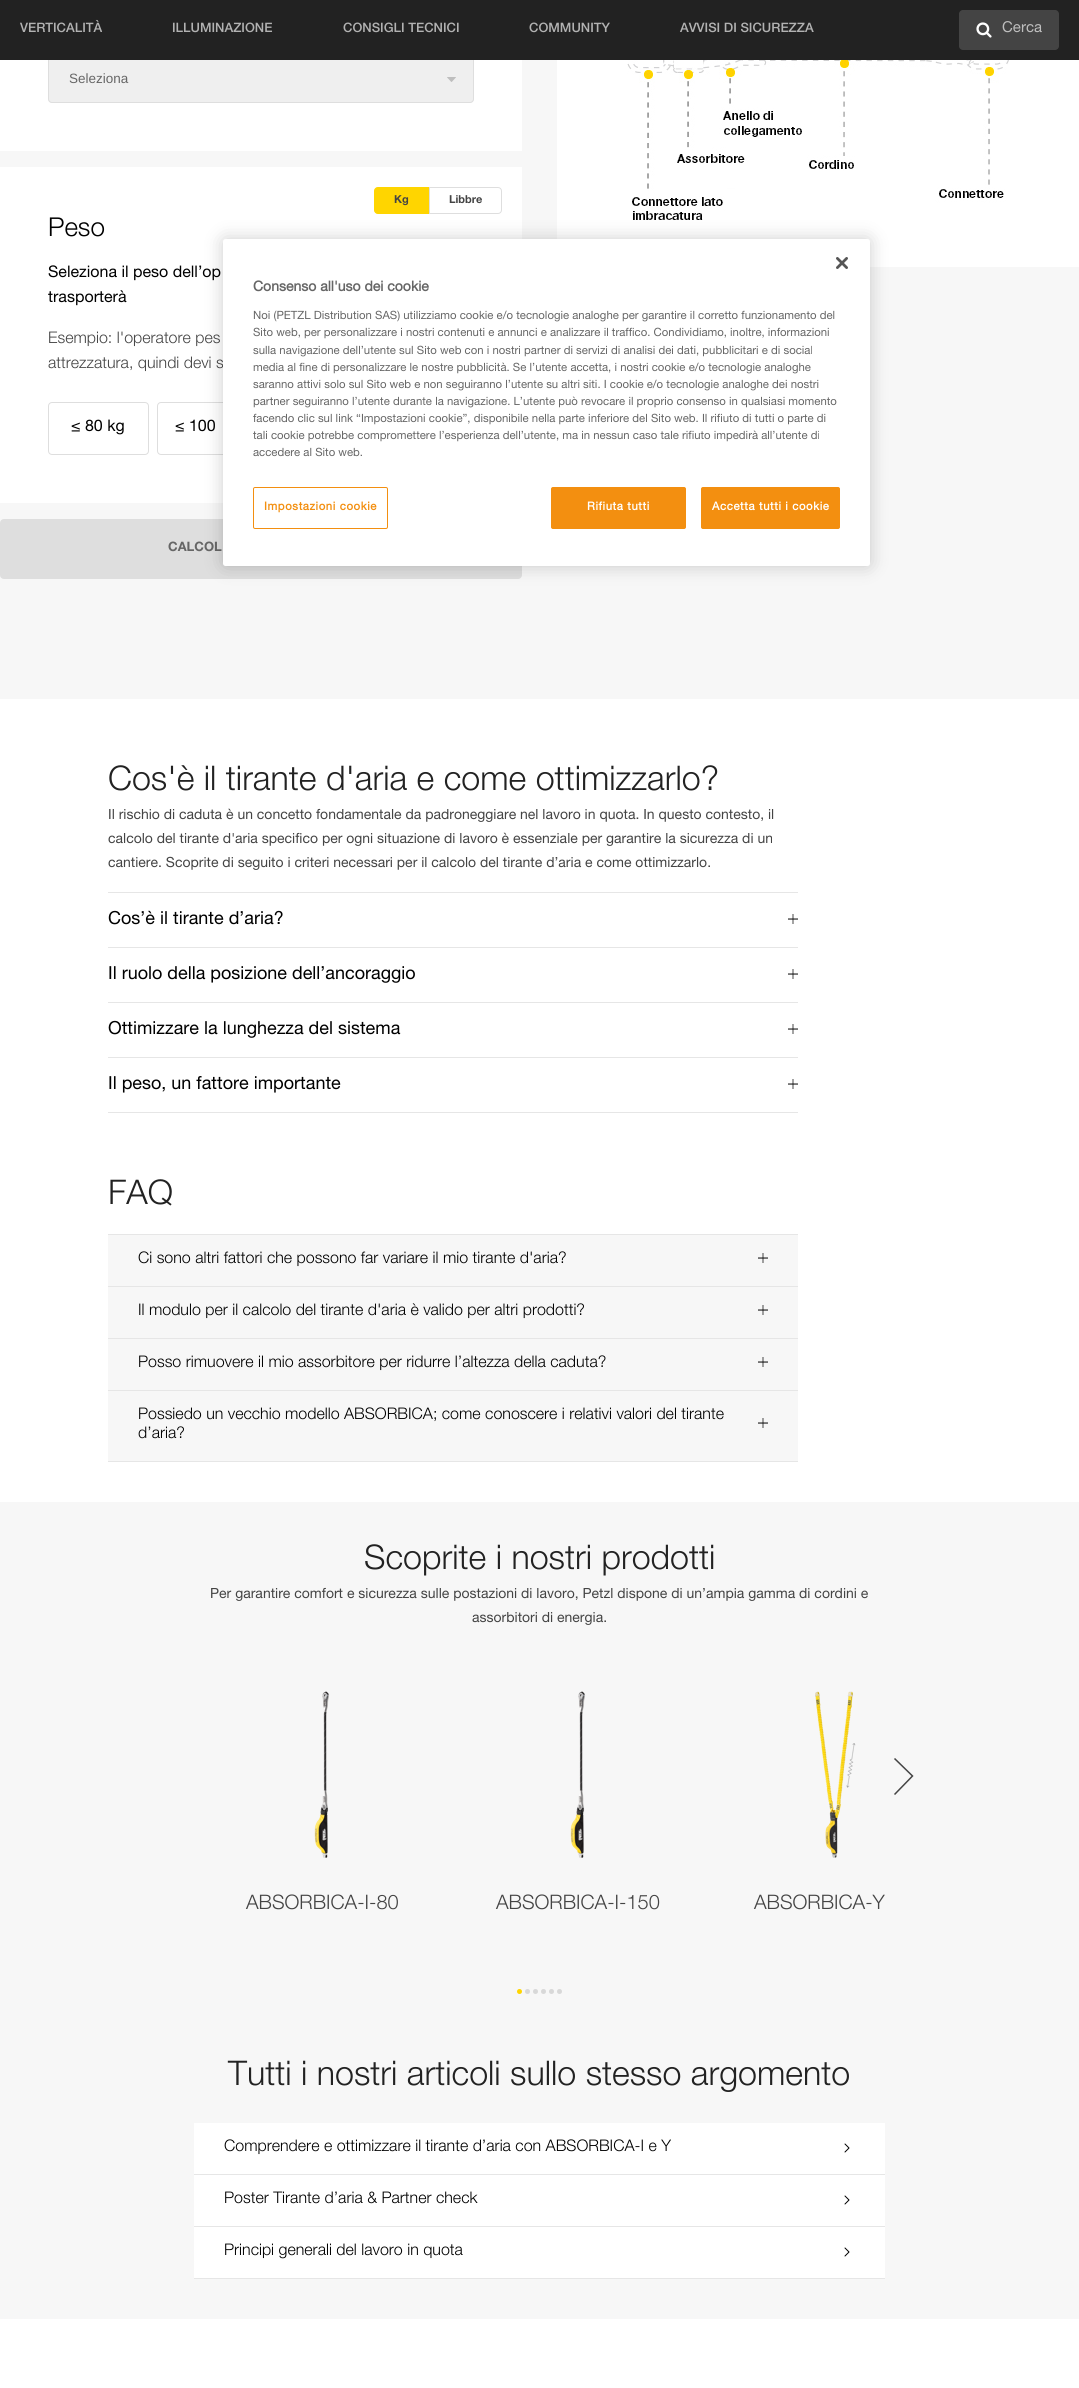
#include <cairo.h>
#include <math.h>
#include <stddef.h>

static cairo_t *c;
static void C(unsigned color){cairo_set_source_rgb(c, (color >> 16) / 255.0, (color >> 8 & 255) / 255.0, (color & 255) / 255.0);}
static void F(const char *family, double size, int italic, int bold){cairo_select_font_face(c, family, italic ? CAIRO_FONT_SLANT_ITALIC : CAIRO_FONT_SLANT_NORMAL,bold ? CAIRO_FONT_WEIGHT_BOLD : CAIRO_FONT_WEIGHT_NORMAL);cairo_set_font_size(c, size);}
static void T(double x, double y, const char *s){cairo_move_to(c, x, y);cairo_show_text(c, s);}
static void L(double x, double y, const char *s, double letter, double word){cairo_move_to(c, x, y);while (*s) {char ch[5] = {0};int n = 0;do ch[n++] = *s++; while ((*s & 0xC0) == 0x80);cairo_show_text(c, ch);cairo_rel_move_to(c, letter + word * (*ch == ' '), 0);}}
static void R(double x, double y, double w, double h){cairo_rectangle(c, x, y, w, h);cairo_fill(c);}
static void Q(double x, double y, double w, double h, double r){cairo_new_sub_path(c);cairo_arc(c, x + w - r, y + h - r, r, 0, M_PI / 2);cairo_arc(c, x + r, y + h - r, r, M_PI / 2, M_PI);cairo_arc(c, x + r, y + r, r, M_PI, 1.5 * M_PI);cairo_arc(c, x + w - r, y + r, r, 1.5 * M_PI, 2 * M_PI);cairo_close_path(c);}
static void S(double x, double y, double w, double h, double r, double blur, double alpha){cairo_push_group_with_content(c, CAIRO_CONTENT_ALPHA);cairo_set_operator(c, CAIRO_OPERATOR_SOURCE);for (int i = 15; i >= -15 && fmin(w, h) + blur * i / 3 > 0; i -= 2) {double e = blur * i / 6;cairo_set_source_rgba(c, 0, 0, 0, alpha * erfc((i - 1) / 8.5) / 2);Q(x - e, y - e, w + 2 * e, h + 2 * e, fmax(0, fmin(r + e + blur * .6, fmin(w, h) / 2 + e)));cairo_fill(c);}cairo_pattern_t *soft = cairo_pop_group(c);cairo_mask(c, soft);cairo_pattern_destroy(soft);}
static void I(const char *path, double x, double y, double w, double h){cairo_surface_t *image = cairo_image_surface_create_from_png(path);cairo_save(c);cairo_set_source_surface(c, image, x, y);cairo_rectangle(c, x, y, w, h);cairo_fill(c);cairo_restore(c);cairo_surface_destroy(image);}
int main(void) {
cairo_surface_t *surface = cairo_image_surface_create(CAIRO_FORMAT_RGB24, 1079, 2388);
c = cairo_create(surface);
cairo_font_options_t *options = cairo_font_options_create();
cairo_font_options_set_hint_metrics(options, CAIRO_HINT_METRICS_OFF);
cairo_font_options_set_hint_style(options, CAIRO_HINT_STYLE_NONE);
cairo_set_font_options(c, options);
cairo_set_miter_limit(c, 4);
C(0xffffff);
cairo_paint(c);
C(0xf7f7f7);
R(0,60,1079,639);
C(0xffffff);
R(0,60,522,91);
C(0xefefef);
Q(48,55,426,48,4);
cairo_fill(c);
I("2.png",447,77,9,5);
Q(48.5,55.5,425,47,3.5);
C(0xdedede);
cairo_set_line_width(c,1);
cairo_stroke(c);
C(0x222222);
R(0,0,1079,60);
F("Helvetica Neue Medium",13,0,0);
C(0xb2b2b2);
T(20,32,"VERTICALITÀ");
T(172,32,"ILLUMINAZIONE");
T(343,32,"CONSIGLI TECNICI");
T(529,32,"COMMUNITY");
T(680,32,"AVVISI DI SICUREZZA");
C(0x444444);
Q(959,10,100,40,4);
cairo_fill(c);
I("1.png",976,22,16,16);
F("Helvetica Neue",15,0,0);
C(0xbebebe);
T(1002,32,"Cerca");
F("Liberation Sans",13.5,0,0);
C(0x666666);
T(69,83,"Seleziona");
C(0xffffff);
R(0,167,522,336);
C(0xffd500);
cairo_new_path(c);
cairo_move_to(c,378,187.5);
cairo_line_to(c,428.5,187.5);
cairo_line_to(c,428.5,213.5);
cairo_line_to(c,378,213.5);
cairo_curve_to(c,376,213.5,374.5,212,374.5,210);
cairo_line_to(c,374.5,191);
cairo_curve_to(c,374.5,189,376,187.5,378,187.5);
cairo_close_path(c);
cairo_fill_preserve(c);
cairo_stroke(c);
F("Helvetica Neue",11,0,1);
C(0x444444);
T(394,203,"Kg");
cairo_new_path(c);
cairo_move_to(c,429.5,187.5);
cairo_line_to(c,498,187.5);
cairo_curve_to(c,500,187.5,501.5,189,501.5,191);
cairo_line_to(c,501.5,210);
cairo_curve_to(c,501.5,212,500,213.5,498,213.5);
cairo_line_to(c,429.5,213.5);
cairo_close_path(c);
C(0xdedede);
cairo_stroke(c);
C(0x444444);
T(449,203,"Libbre");
F("Helvetica Neue Light",26,0,0);
C(0x000000);
T(48,236,"Peso");
F("Helvetica Neue",16,0,0);
T(48,277,"Seleziona il peso dell’op");
T(48,302,"trasporterà");
F("Helvetica Neue Light",16,0,0);
C(0x444444);
T(48,343,"Esempio: l'operatore pes");
T(48,368,"attrezzatura, quindi devi s");
Q(48.5,402.5,100,52,3.5);
C(0xdedede);
cairo_stroke(c);
F("Helvetica Neue",16,0,0);
C(0x000000);
T(71,431,"≤ 80 kg");
Q(157.5,402.5,99,52,3.5);
C(0xdedede);
cairo_stroke(c);
C(0x000000);
T(175,431,"≤ 100");
C(0xdedede);
Q(0,519,522,60,4);
cairo_fill(c);
F("Helvetica Neue",13,0,1);
C(0x666666);
T(168,551,"CALCOL");
C(0xffffff);
R(557,60,522,207);
I("3.png",627,60,382,160);
F("Helvetica Neue Light",34,0,0);
C(0x222222);
T(108,790,"Cos'è il tirante d'aria e come ottimizzarlo?");
F("Helvetica Neue",14,0,0);
C(0x444444);
T(108,819,"Il rischio di caduta è un concetto fondamentale da padroneggiare nel lavoro in quota. In questo contesto, il");
T(108,843,"calcolo del tirante d'aria specifico per ogni situazione di lavoro è essenziale per garantire la sicurezza di un");
T(108,867,"cantiere. Scoprite di seguito i criteri necessari per il calcolo del tirante d’aria e come ottimizzarlo.");
C(0xe6e6e6);
R(108,892,690,1);
R(108,947,690,1);
F("Helvetica Neue",18,0,0);
C(0x000000);
T(108,924,"Cos’è il tirante d’aria?");
I("4.png",788,914,10,10);
C(0xe6e6e6);
R(108,1002,690,1);
C(0x000000);
T(108,979,"Il ruolo della posizione dell’ancoraggio");
I("4.png",788,969,10,10);
C(0xe6e6e6);
R(108,1057,690,1);
C(0x000000);
T(108,1034,"Ottimizzare la lunghezza del sistema");
I("4.png",788,1024,10,10);
C(0xe6e6e6);
R(108,1112,690,1);
C(0x000000);
T(108,1089,"Il peso, un fattore importante");
I("4.png",788,1079,10,10);
F("Helvetica Neue Light",34,0,0);
C(0x222222);
T(108,1204,"FAQ");
C(0xe6e6e6);
R(108,1234,690,1);
C(0xf7f7f7);
R(108,1235,690,51);
C(0xe6e6e6);
R(108,1286,690,1);
F("Helvetica Neue Light",16,0,0);
C(0x000000);
T(138,1263,"Ci sono altri fattori che possono far variare il mio tirante d'aria?");
I("5.png",758,1253,10,10);
C(0xf7f7f7);
R(108,1287,690,51);
C(0xe6e6e6);
R(108,1338,690,1);
C(0x000000);
T(138,1315,"Il modulo per il calcolo del tirante d'aria è valido per altri prodotti?");
I("5.png",758,1305,10,10);
C(0xf7f7f7);
R(108,1339,690,51);
C(0xe6e6e6);
R(108,1390,690,1);
C(0x000000);
T(138,1367,"Posso rimuovere il mio assorbitore per ridurre l’altezza della caduta?");
I("5.png",758,1357,10,10);
C(0xf7f7f7);
R(108,1391,690,70);
C(0xe6e6e6);
R(108,1461,690,1);
C(0x000000);
T(138,1419,"Possiedo un vecchio modello ABSORBICA; come conoscere i relativi valori del tirante");
T(138,1438,"d’aria?");
I("5.png",758,1418,10,10);
C(0xf7f7f7);
R(0,1502,1079,817);
F("Helvetica Neue Light",34,0,0);
C(0x222222);
T(364,1569,"Scoprite i nostri prodotti");
F("Helvetica Neue",14,0,0);
C(0x444444);
T(210,1598,"Per garantire comfort e sicurezza sulle postazioni di lavoro, Petzl dispone di un’ampia gamma di cordini e");
T(472,1622,"assorbitori di energia.");
cairo_new_path(c);
cairo_move_to(c,894.5,1758.5);
cairo_line_to(c,912.5,1776);
cairo_line_to(c,894.5,1794.5);
cairo_set_line_width(c,1.5);
cairo_stroke(c);
I("6.png",314,1691,16,167);
F("Helvetica Neue Light",20,0,0);
T(246,1909,"ABSORBICA-I-80");
I("6.png",570,1691,16,167);
T(496,1909,"ABSORBICA-I-150");
I("7.png",815,1691,41,167);
T(754,1909,"ABSORBICA-Y");
C(0xffd500);
cairo_new_path(c);
cairo_arc(c,519.5,1991.5,2.5,0,2 * M_PI);
cairo_fill(c);
C(0xd8d8d8);
cairo_arc(c,527.5,1991.5,2.5,0,2 * M_PI);
cairo_fill(c);
cairo_arc(c,535.5,1991.5,2.5,0,2 * M_PI);
cairo_fill(c);
cairo_arc(c,543.5,1991.5,2.5,0,2 * M_PI);
cairo_fill(c);
cairo_arc(c,551.5,1991.5,2.5,0,2 * M_PI);
cairo_fill(c);
cairo_arc(c,559.5,1991.5,2.5,0,2 * M_PI);
cairo_fill(c);
F("Helvetica Neue Light",34,0,0);
C(0x222222);
T(228,2085,"Tutti i nostri articoli sullo stesso argomento");
C(0xffffff);
R(194,2123,691,51);
C(0xe6e6e6);
R(194,2174,691,1);
F("Helvetica Neue Light",16,0,0);
C(0x000000);
T(224,2151,"Comprendere e ottimizzare il tirante d’aria con ABSORBICA-I e Y");
I("8.png",844,2143,6,10);
C(0xffffff);
R(194,2175,691,51);
C(0xe6e6e6);
R(194,2226,691,1);
C(0x000000);
T(224,2203,"Poster Tirante d’aria & Partner check");
I("8.png",844,2195,6,10);
C(0xffffff);
R(194,2227,691,51);
C(0xe6e6e6);
R(194,2278,691,1);
C(0x000000);
T(224,2255,"Principi generali del lavoro in quota");
I("8.png",844,2247,6,10);
C(0x000000);
S(223,239,647,327,2.5,9,.2);
C(0xffffff);
Q(223,239,647,327,2.5);
cairo_fill(c);
I("9.png",836,257,12,12);
F("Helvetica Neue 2",14,0,1);
C(0x666666);
T(253,291,"Consenso all'uso dei cookie");
F("Helvetica Neue",11.38,0,0);
T(253,319,"Noi (PETZL Distribution SAS) utilizziamo cookie e/o tecnologie analoghe per garantire il corretto funzionamento del");
T(253,336,"Sito web, per personalizzare i nostri contenuti e annunci e analizzare il traffico. Condividiamo, inoltre, informazioni");
T(253,354,"sulla navigazione dell’utente sul Sito web con i nostri partner di servizi di analisi dei dati, pubblicitari e di social");
T(253,371,"media al fine di personalizzare le nostre pubblicità. Se l’utente accetta, i nostri cookie e/o tecnologie analoghe");
T(253,388,"saranno attivi solo sul Sito web e non seguiranno l’utente su altri siti. I cookie e/o tecnologie analoghe dei nostri");
T(253,405,"partner seguiranno l’utente durante la navigazione. L’utente può revocare il proprio consenso in qualsiasi momento");
T(253,422,"facendo clic sul link “Impostazioni cookie”, disponibile nella parte inferiore del Sito web. Il rifiuto di tutti o parte di");
T(253,439,"tali cookie potrebbe compromettere l’esperienza dell’utente, ma in nessun caso tale rifiuto impedirà all’utente di");
T(253,456,"accedere al Sito web.");
Q(253.5,487.5,134,41,1.5);
C(0xf38f10);
cairo_set_line_width(c,1);
cairo_stroke(c);
F("Helvetica Neue 2",11.38,0,1);
L(264,510,"Impostazioni cookie",.6,0);
Q(551.5,487.5,134,41,1.5);
cairo_fill_preserve(c);
cairo_stroke(c);
C(0xffffff);
L(587,510,"Rifiuta tutti",.6,0);
C(0xf38f10);
Q(701.5,487.5,138,41,1.5);
cairo_fill_preserve(c);
cairo_stroke(c);
C(0xffffff);
L(712,510,"Accetta tutti i cookie",.6,0);
cairo_surface_write_to_png(surface, "o.png");
cairo_font_options_destroy(options);
cairo_destroy(c);
cairo_surface_destroy(surface);
return 0;
}
